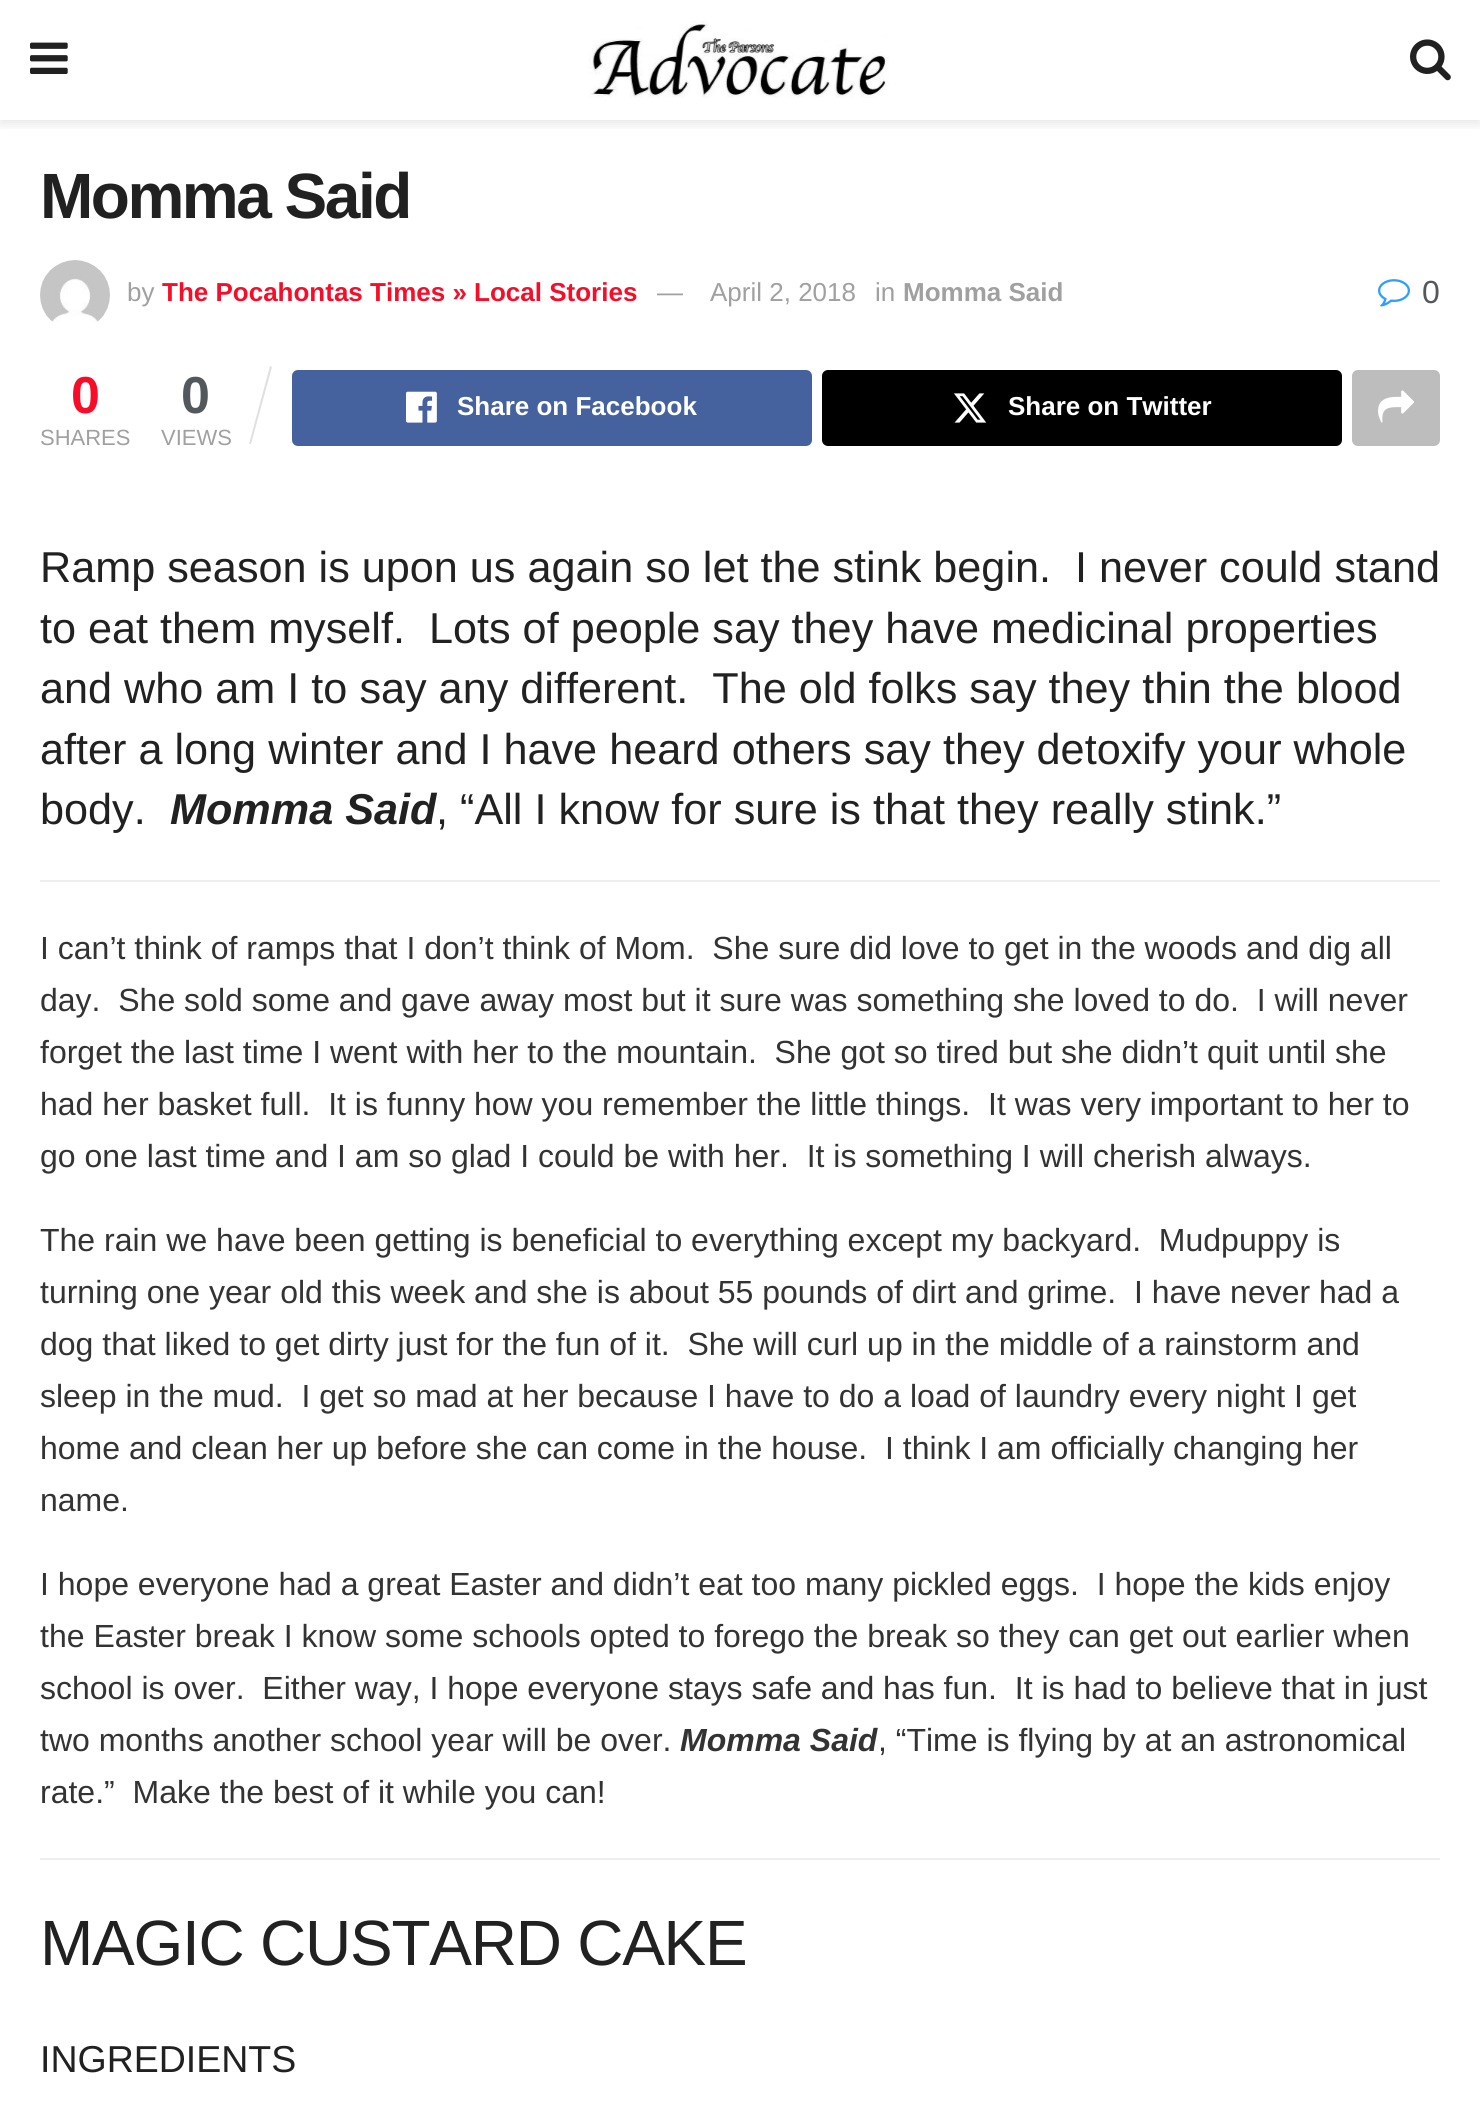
#include <cairo.h>
#include <math.h>
#include <stddef.h>

static cairo_t *c;
static void C(unsigned color){cairo_set_source_rgb(c, (color >> 16) / 255.0, (color >> 8 & 255) / 255.0, (color & 255) / 255.0);}
static void F(const char *family, double size, int italic, int bold){cairo_select_font_face(c, family, italic ? CAIRO_FONT_SLANT_ITALIC : CAIRO_FONT_SLANT_NORMAL,bold ? CAIRO_FONT_WEIGHT_BOLD : CAIRO_FONT_WEIGHT_NORMAL);cairo_set_font_size(c, size);}
static void T(double x, double y, const char *s){cairo_move_to(c, x, y);cairo_show_text(c, s);}
static void L(double x, double y, const char *s, double letter, double word){cairo_move_to(c, x, y);while (*s) {char ch[5] = {0};int n = 0;do ch[n++] = *s++; while ((*s & 0xC0) == 0x80);cairo_show_text(c, ch);cairo_rel_move_to(c, letter + word * (*ch == ' '), 0);}}
static void R(double x, double y, double w, double h){cairo_rectangle(c, x, y, w, h);cairo_fill(c);}
static void Q(double x, double y, double w, double h, double r){cairo_new_sub_path(c);cairo_arc(c, x + w - r, y + h - r, r, 0, M_PI / 2);cairo_arc(c, x + r, y + h - r, r, M_PI / 2, M_PI);cairo_arc(c, x + r, y + r, r, M_PI, 1.5 * M_PI);cairo_arc(c, x + w - r, y + r, r, 1.5 * M_PI, 2 * M_PI);cairo_close_path(c);}
static void S(double x, double y, double w, double h, double r, double blur, double alpha){cairo_push_group_with_content(c, CAIRO_CONTENT_ALPHA);cairo_set_operator(c, CAIRO_OPERATOR_SOURCE);for (int i = 15; i >= -15 && fmin(w, h) + blur * i / 3 > 0; i -= 2) {double e = blur * i / 6;cairo_set_source_rgba(c, 0, 0, 0, alpha * erfc((i - 1) / 8.5) / 2);Q(x - e, y - e, w + 2 * e, h + 2 * e, fmax(0, fmin(r + e + blur * .6, fmin(w, h) / 2 + e)));cairo_fill(c);}cairo_pattern_t *soft = cairo_pop_group(c);cairo_mask(c, soft);cairo_pattern_destroy(soft);}
static void I(const char *path, double x, double y, double w, double h){cairo_surface_t *image = cairo_image_surface_create_from_png(path);cairo_save(c);cairo_set_source_surface(c, image, x, y);cairo_rectangle(c, x, y, w, h);cairo_fill(c);cairo_restore(c);cairo_surface_destroy(image);}
int main(void) {
cairo_surface_t *surface = cairo_image_surface_create(CAIRO_FORMAT_RGB24, 1480, 2109);
c = cairo_create(surface);
cairo_font_options_t *options = cairo_font_options_create();
cairo_font_options_set_hint_metrics(options, CAIRO_HINT_METRICS_OFF);
cairo_font_options_set_hint_style(options, CAIRO_HINT_STYLE_NONE);
cairo_set_font_options(c, options);
cairo_set_miter_limit(c, 4);
C(0xffffff);
cairo_paint(c);
cairo_save(c);
cairo_rectangle(c,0,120,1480,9);
cairo_clip(c);
C(0x000000);
S(0,4,1480,120,0,6,.1);
cairo_restore(c);
I("1.png",30,42,38,32);
I("2.png",588,20,301,78);
I("3.png",1410,39,41,42);
F("Liberation Sans",64,0,1);
C(0x212121);
L(40,218,"Momma Said",-2.5,0);
I("4.png",40,260,70,62);
F("Liberation Sans",26,0,0);
C(0xa0a0a0);
T(127,301,"by");
F("Liberation Sans",26,0,1);
C(0xf70d28);
T(162,301,"The Pocahontas Times » Local Stories");
F("Liberation Sans",26,0,0);
C(0xa0a0a0);
T(657,301,"—");
T(710,301,"April 2, 2018");
T(875,301,"in");
F("Liberation Sans",26,0,1);
T(903,301,"Momma Said");
I("5.png",1378,279,32,28);
F("Liberation Sans",32,0,0);
C(0x53585c);
T(1422,303,"0");
F("Liberation Sans",52,0,1);
C(0xf70d28);
T(71,413,"0");
F("Liberation Sans",22,0,0);
C(0xa0a0a0);
T(40,445,"SHARES");
F("Liberation Sans",52,0,1);
C(0x53585c);
T(181,413,"0");
C(0xe0e0e0);
cairo_new_path(c);
cairo_move_to(c,270,366);
cairo_line_to(c,272,367);
cairo_line_to(c,251,444);
cairo_line_to(c,249,444);
cairo_close_path(c);
cairo_fill(c);
F("Liberation Sans",22,0,0);
C(0xa0a0a0);
T(161,445,"VIEWS");
C(0x45629f);
Q(292,370,520,76,6);
cairo_fill(c);
I("6.png",406,391,31,32);
F("Liberation Sans",26,0,1);
C(0xffffff);
T(457,415,"Share on Facebook");
C(0x000000);
Q(822,370,520,76,6);
cairo_fill(c);
I("7.png",954,393,33,30);
C(0xffffff);
T(1008,415,"Share on Twitter");
C(0xbdbdbd);
Q(1352,370,88,76,6);
cairo_fill(c);
I("8.png",1378,390,36,33);
F("Liberation Sans",43.2,0,0);
C(0x212121);
T(40,582,"Ramp season is upon us again so let the stink begin.  I never could stand");
T(40,643,"to eat them myself.  Lots of people say they have medicinal properties");
T(40,703,"and who am I to say any different.  The old folks say they thin the blood");
T(40,764,"after a long winter and I have heard others say they detoxify your whole");
T(40,824,"body.");
F("Liberation Sans",43.2,1,1);
T(170,824,"Momma Said");
F("Liberation Sans",43.2,0,0);
T(436,824,", “All I know for sure is that they really stink.”");
C(0xeeeeee);
R(40,880,1400,2);
F("Liberation Sans",32,0,0);
C(0x333333);
T(40,959,"I can’t think of ramps that I don’t think of Mom.  She sure did love to get in the woods and dig all");
T(40,1011,"day.  She sold some and gave away most but it sure was something she loved to do.  I will never");
T(40,1063,"forget the last time I went with her to the mountain.  She got so tired but she didn’t quit until she");
T(40,1115,"had her basket full.  It is funny how you remember the little things.  It was very important to her to");
T(40,1167,"go one last time and I am so glad I could be with her.  It is something I will cherish always.");
T(40,1251,"The rain we have been getting is beneficial to everything except my backyard.  Mudpuppy is");
T(40,1303,"turning one year old this week and she is about 55 pounds of dirt and grime.  I have never had a");
T(40,1355,"dog that liked to get dirty just for the fun of it.  She will curl up in the middle of a rainstorm and");
T(40,1407,"sleep in the mud.  I get so mad at her because I have to do a load of laundry every night I get");
T(40,1459,"home and clean her up before she can come in the house.  I think I am officially changing her");
T(40,1511,"name.");
T(40,1595,"I hope everyone had a great Easter and didn’t eat too many pickled eggs.  I hope the kids enjoy");
T(40,1647,"the Easter break I know some schools opted to forego the break so they can get out earlier when");
T(40,1699,"school is over.  Either way, I hope everyone stays safe and has fun.  It is had to believe that in just");
T(40,1751,"two months another school year will be over.");
F("Liberation Sans",32,1,1);
T(680,1751,"Momma Said");
F("Liberation Sans",32,0,0);
T(878,1751,", “Time is flying by at an astronomical");
T(40,1803,"rate.”  Make the best of it while you can!");
C(0xeeeeee);
R(40,1858,1400,2);
F("Liberation Sans",64,0,0);
C(0x212121);
L(40,1965,"MAGIC CUSTARD CAKE",-1.25,0);
F("Liberation Sans",37.5,0,0);
T(40,2072,"INGREDIENTS");
cairo_surface_write_to_png(surface, "o.png");
cairo_font_options_destroy(options);
cairo_destroy(c);
cairo_surface_destroy(surface);
return 0;
}
